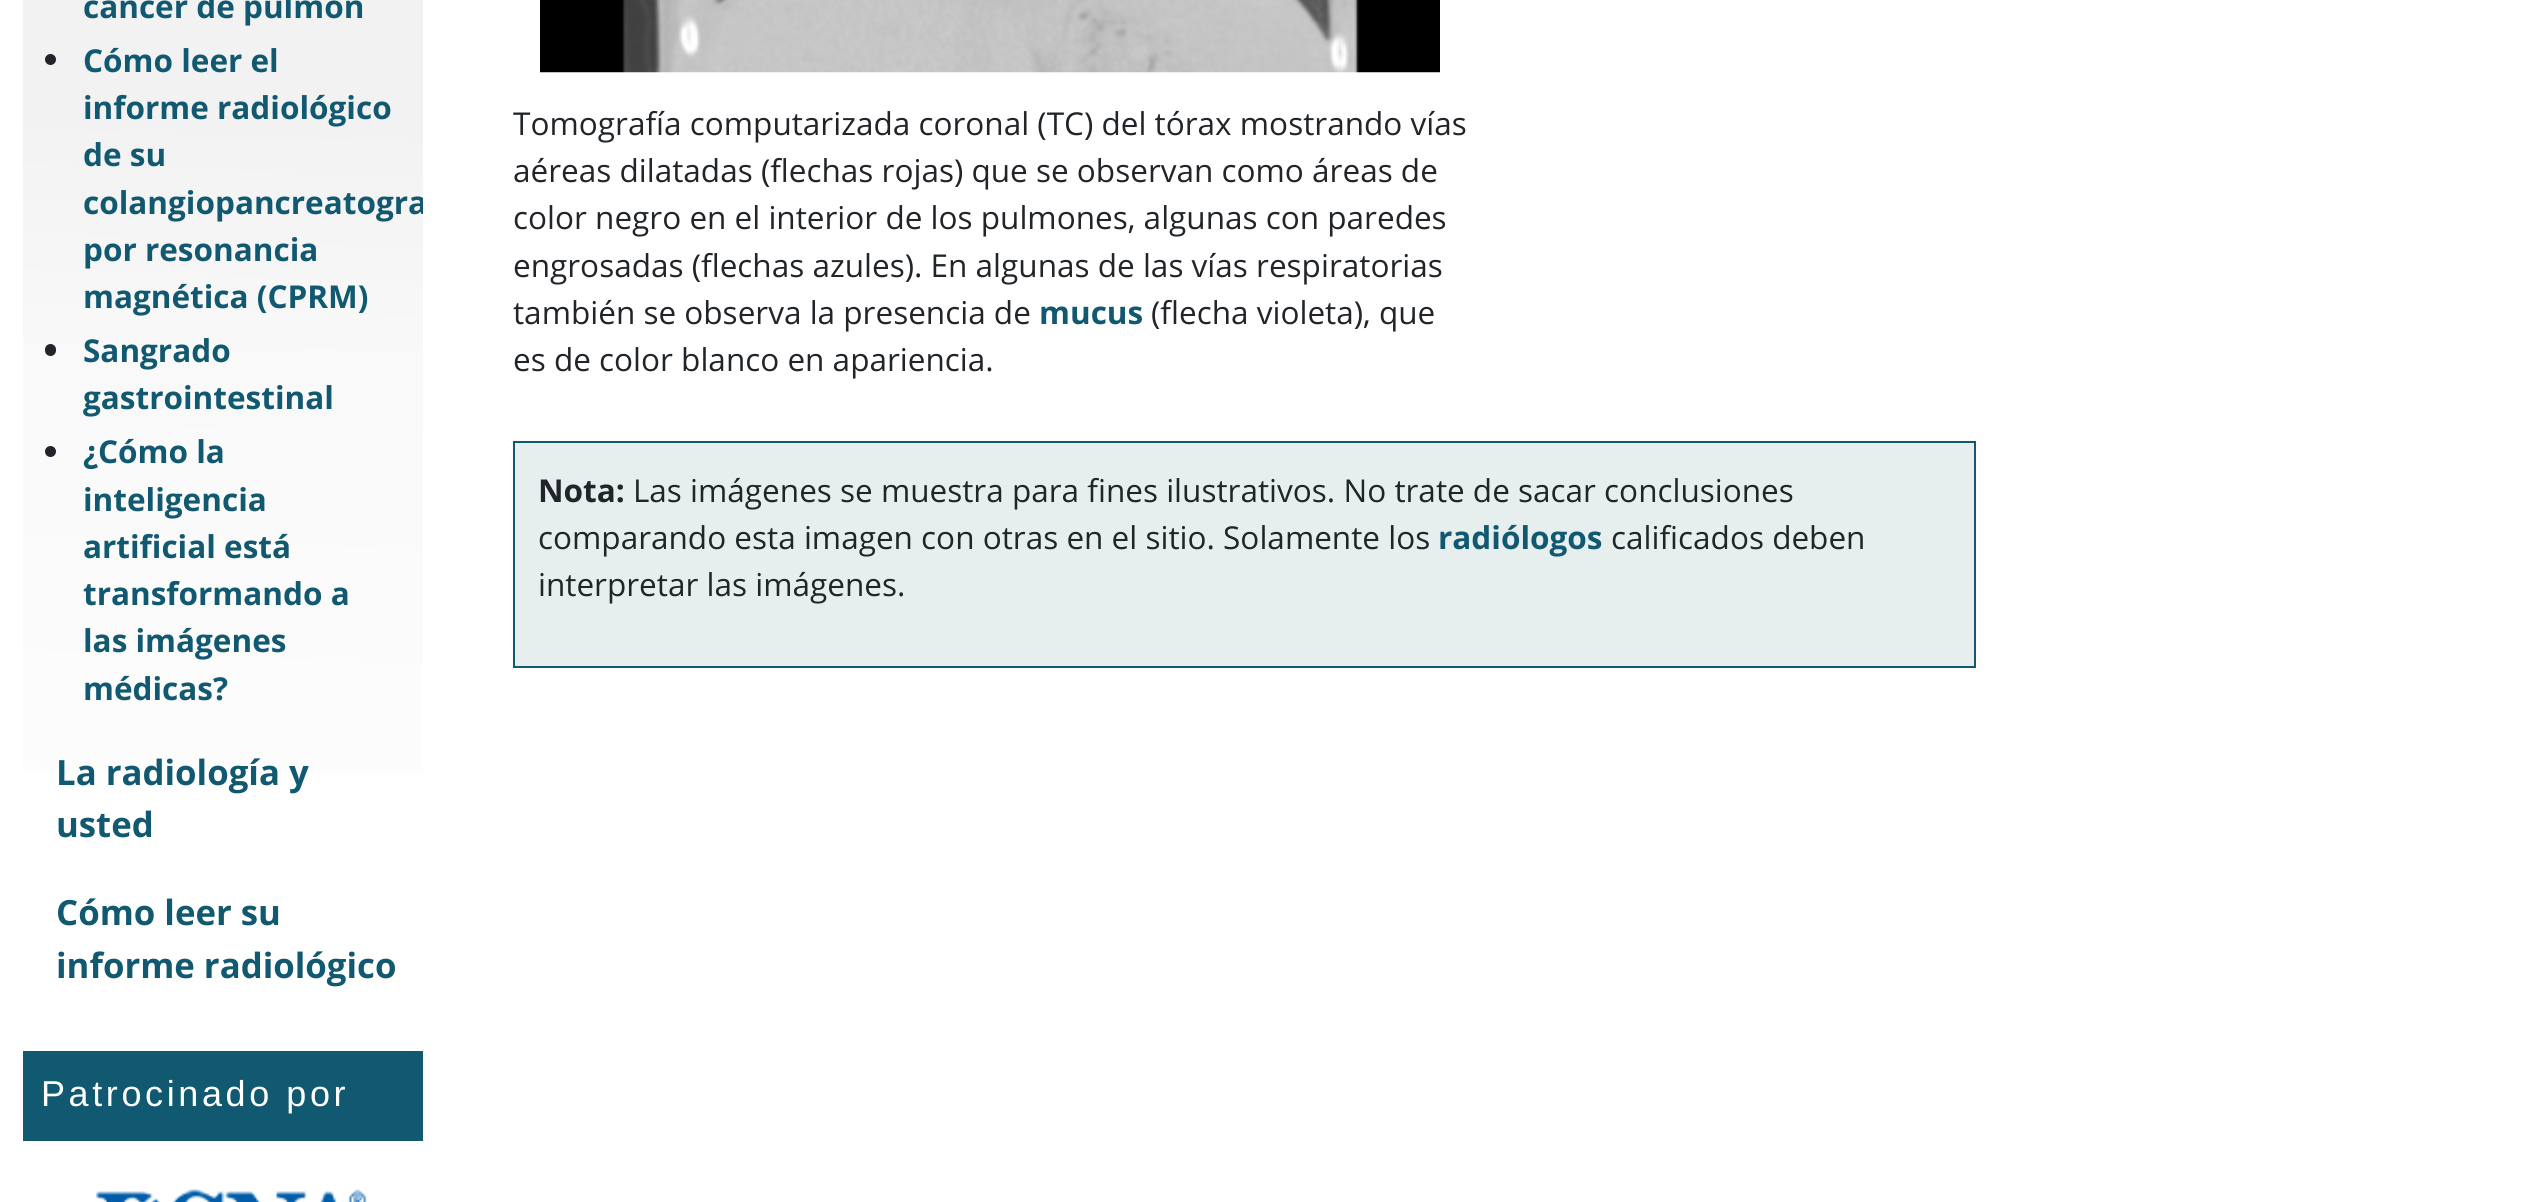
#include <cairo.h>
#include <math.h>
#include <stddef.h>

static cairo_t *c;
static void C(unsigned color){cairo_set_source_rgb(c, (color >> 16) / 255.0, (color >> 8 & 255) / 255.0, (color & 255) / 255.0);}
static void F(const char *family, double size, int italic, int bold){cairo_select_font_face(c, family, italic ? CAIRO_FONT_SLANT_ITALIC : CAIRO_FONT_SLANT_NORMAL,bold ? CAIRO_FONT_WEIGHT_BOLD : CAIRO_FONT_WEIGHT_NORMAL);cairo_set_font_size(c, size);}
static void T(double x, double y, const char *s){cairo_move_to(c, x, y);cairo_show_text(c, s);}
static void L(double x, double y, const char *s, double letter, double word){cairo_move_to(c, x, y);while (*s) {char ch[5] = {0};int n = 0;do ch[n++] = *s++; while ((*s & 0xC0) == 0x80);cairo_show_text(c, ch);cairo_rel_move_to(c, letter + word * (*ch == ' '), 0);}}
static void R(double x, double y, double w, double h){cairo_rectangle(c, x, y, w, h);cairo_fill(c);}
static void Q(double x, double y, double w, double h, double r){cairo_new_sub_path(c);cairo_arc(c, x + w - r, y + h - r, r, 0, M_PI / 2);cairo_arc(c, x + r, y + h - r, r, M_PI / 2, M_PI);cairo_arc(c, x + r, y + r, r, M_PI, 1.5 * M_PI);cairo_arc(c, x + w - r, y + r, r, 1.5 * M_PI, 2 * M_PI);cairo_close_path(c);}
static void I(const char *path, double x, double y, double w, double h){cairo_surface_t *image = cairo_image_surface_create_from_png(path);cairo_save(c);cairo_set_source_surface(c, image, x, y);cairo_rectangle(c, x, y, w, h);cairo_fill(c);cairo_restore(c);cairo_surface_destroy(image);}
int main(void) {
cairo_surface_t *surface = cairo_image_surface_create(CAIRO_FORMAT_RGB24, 2536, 1202);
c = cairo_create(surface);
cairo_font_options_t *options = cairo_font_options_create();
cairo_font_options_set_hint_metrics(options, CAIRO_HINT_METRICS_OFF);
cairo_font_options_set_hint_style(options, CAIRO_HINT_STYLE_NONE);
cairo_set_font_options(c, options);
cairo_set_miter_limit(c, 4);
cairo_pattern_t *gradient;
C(0xffffff);
cairo_paint(c);
gradient = cairo_pattern_create_linear(193,1057,253,-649);
cairo_pattern_add_color_stop_rgba(gradient,0,1,1,1,1);
cairo_pattern_add_color_stop_rgba(gradient,.41,0.976,0.976,0.976,1);
cairo_pattern_add_color_stop_rgba(gradient,.55,0.949,0.949,0.953,1);
cairo_set_source(c,gradient);
cairo_pattern_destroy(gradient);
R(23,0,400,773);
F("Open Sans",31.5,0,1);
C(0x115871);
T(83,18,"cáncer de pulmón");
C(0x212529);
cairo_new_path(c);
cairo_arc(c,50.5,59.5,5.5,0,2 * M_PI);
cairo_fill(c);
C(0x115871);
T(83,72,"Cómo leer el");
T(83,119,"informe radiológico");
T(83,166,"de su");
T(83,214,"colangiopancreatogra");
T(83,261,"por resonancia");
T(83,308,"magnética (CPRM)");
C(0x212529);
Q(45,344,11,12,5.5);
cairo_fill(c);
C(0x115871);
T(83,362,"Sangrado");
T(83,409,"gastrointestinal");
C(0x212529);
cairo_new_path(c);
cairo_arc(c,50.5,451.5,5.5,0,2 * M_PI);
cairo_fill(c);
C(0x115871);
T(83,463,"¿Cómo la");
T(83,511,"inteligencia");
T(83,558,"artificial está");
T(83,605,"transformando a");
T(83,652,"las imágenes");
T(83,700,"médicas?");
F("Open Sans",34.75,0,1);
T(56,785,"La radiología y");
T(56,837,"usted");
T(56,925,"Cómo leer su");
T(56,978,"informe radiológico");
R(23,1051,400,90);
F("Liberation Sans",36,0,0);
C(0xffffff);
L(41,1106,"Patrocinado por",3.6,0);
I("1.png",95,1189,272,13);
R(423,198,2,16);
I("2.png",540,0,900,73);
F("Open Sans",31.5,0,0);
C(0x212529);
T(513,135,"Tomografía computarizada coronal (TC) del tórax mostrando vías");
T(513,182,"aéreas dilatadas (flechas rojas) que se observan como áreas de");
T(513,229,"color negro en el interior de los pulmones, algunas con paredes");
T(513,277,"engrosadas (flechas azules). En algunas de las vías respiratorias");
T(513,324,"también se observa la presencia de");
F("Open Sans",31.5,0,1);
C(0x115871);
T(1039,324,"mucus");
F("Open Sans",31.5,0,0);
C(0x212529);
T(1151,324,"(flecha violeta), que");
T(513,371,"es de color blanco en apariencia.");
C(0xe6eeee);
cairo_rectangle(c,514,442,1461,225);
cairo_fill_preserve(c);
C(0x115871);
cairo_stroke(c);
F("Open Sans",31.5,0,1);
C(0x212529);
T(538,502,"Nota:");
F("Open Sans",31.5,0,0);
T(633,502,"Las imágenes se muestra para fines ilustrativos. No trate de sacar conclusiones");
T(538,549,"comparando esta imagen con otras en el sitio. Solamente los");
F("Open Sans",31.5,0,1);
C(0x115871);
T(1438,549,"radiólogos");
F("Open Sans",31.5,0,0);
C(0x212529);
T(1611,549,"calificados deben");
T(538,596,"interpretar las imágenes.");
cairo_surface_write_to_png(surface, "o.png");
cairo_font_options_destroy(options);
cairo_destroy(c);
cairo_surface_destroy(surface);
return 0;
}
